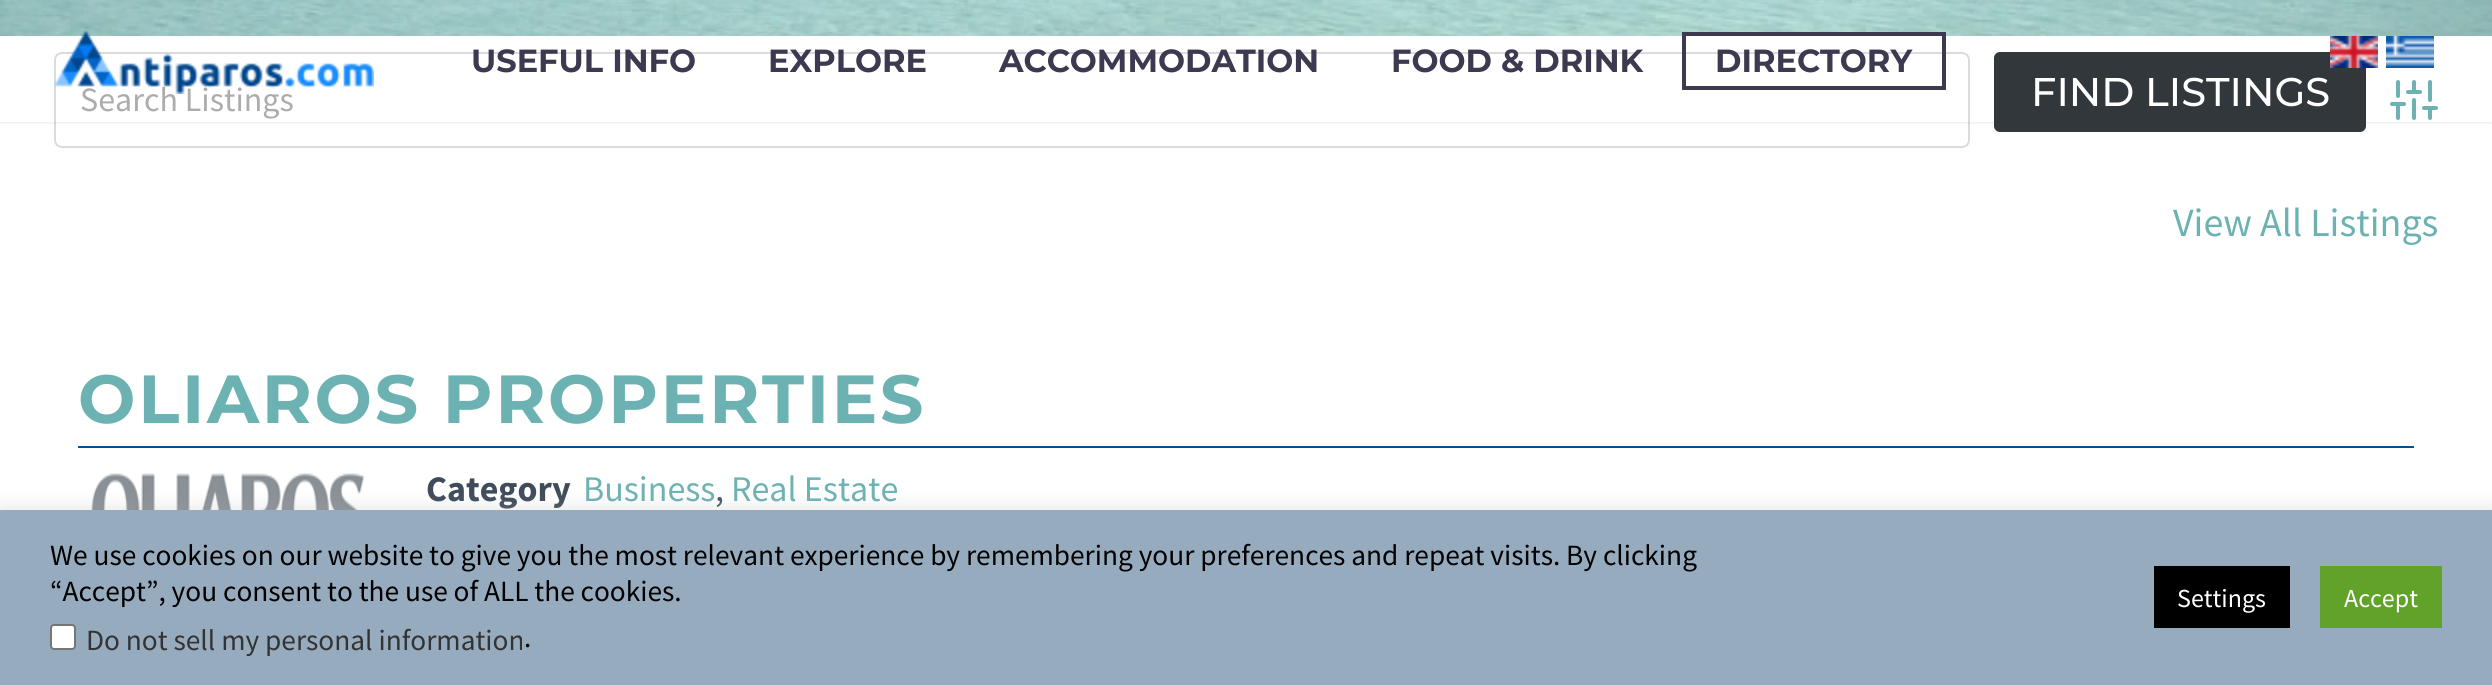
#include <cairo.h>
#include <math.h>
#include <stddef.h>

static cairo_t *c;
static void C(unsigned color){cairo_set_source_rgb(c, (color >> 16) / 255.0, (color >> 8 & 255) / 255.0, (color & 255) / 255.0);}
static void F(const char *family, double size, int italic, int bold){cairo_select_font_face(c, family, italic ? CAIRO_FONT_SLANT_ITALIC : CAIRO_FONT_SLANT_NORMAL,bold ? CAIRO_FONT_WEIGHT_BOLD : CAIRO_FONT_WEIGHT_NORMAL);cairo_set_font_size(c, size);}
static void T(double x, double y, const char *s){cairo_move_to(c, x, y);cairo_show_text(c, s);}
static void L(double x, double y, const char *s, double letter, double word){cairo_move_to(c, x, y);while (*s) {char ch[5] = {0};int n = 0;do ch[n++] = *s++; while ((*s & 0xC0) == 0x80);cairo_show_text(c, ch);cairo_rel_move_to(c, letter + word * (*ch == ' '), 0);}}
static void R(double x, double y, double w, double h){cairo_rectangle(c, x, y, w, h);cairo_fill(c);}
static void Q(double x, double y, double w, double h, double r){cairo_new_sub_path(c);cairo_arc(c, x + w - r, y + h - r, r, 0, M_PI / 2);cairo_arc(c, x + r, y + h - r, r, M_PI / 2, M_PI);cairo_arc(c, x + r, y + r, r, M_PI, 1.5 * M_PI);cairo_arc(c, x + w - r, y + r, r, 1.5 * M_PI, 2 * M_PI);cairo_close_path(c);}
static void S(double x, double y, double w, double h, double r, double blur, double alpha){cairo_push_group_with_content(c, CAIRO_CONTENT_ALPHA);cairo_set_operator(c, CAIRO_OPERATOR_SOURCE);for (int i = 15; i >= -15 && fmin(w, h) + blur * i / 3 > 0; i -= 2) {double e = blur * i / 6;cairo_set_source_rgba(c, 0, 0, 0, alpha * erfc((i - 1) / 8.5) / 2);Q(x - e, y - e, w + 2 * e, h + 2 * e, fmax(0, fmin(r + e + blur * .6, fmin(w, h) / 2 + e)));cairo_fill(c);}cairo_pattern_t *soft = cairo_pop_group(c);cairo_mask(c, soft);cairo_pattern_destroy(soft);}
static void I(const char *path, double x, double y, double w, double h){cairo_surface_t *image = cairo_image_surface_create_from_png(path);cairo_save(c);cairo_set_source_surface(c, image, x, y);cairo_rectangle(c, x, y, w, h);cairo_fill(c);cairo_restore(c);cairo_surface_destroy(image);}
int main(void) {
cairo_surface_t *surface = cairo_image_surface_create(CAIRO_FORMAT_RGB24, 2492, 685);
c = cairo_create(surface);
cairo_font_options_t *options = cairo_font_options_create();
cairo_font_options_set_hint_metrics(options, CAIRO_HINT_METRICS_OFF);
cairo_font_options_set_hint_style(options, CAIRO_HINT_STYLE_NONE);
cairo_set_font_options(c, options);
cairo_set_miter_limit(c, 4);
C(0xffffff);
cairo_paint(c);
I("4.png",0,0,2492,36);
Q(55,53,1914,94,7);
C(0xd9dbde);
cairo_stroke(c);
C(0x32373c);
Q(1995,53,370,78,5);
cairo_fill_preserve(c);
cairo_stroke(c);
cairo_new_path(c);
cairo_move_to(c,2398,118);
cairo_line_to(c,2398,104);
cairo_move_to(c,2398,96);
cairo_line_to(c,2398,82);
cairo_move_to(c,2414,118);
cairo_line_to(c,2414,100);
cairo_move_to(c,2414,92);
cairo_line_to(c,2414,82);
cairo_move_to(c,2430,118);
cairo_line_to(c,2430,108);
cairo_move_to(c,2430,100);
cairo_line_to(c,2430,82);
cairo_move_to(c,2392,104);
cairo_line_to(c,2404,104);
cairo_move_to(c,2408,92);
cairo_line_to(c,2420,92);
cairo_move_to(c,2424,108);
cairo_line_to(c,2436,108);
C(0x6db2b2);
cairo_set_line_width(c,4);
cairo_set_line_cap(c,CAIRO_LINE_CAP_ROUND);
cairo_set_line_join(c,CAIRO_LINE_JOIN_ROUND);
cairo_stroke(c);
cairo_save(c);
cairo_rectangle(c,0,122,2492,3);
cairo_clip(c);
C(0x384554);
S(0,0,2492,122,0,2,.2);
cairo_restore(c);
F("Source Sans Pro",34,0,0);
C(0xacacac);
T(80,111,"Search Listings");
I("1.png",54,30,320,64);
F("Montserrat",32,0,1);
C(0x3c3950);
T(471,72,"USEFUL INFO");
T(768,72,"EXPLORE");
T(999,72,"ACCOMMODATION");
T(1391,72,"FOOD & DRINK");
cairo_rectangle(c,1684,34,260,54);
cairo_set_line_cap(c,CAIRO_LINE_CAP_BUTT);
cairo_set_line_join(c,CAIRO_LINE_JOIN_MITER);
cairo_stroke(c);
T(1715,72,"DIRECTORY");
I("2.png",2330,36,48,32);
I("3.png",2386,36,48,32);
F("Montserrat Medium",40,0,0);
C(0xffffff);
T(2031,106,"FIND LISTINGS");
F("Source Sans Pro",40,0,0);
C(0x6db2b2);
T(2173,236,"View All Listings");
C(0x044f8d);
R(78,446,2336,2);
F("Montserrat",68,0,1);
C(0x6db2b2);
L(78,423,"OLIAROS PROPERTIES",2.75,0);
I("5.png",91,473,274,37);
F("Source Sans Pro",36,0,1);
C(0x3f4b5b);
T(426,501,"Category");
F("Source Sans Pro",36,0,0);
C(0x6db2b2);
T(583,501,"Business");
C(0x445a68);
T(715,501,",");
C(0x6db2b2);
T(731,501,"Real Estate");
C(0xacabab);
S(0,508,2492,176,0,10,.3);
C(0x97abbf);
R(0,510,2492,175);
F("Source Sans Pro",29.33,0,0);
C(0x000000);
T(50,565,"We use cookies on our website to give you the most relevant experience by remembering your preferences and repeat visits. By clicking");
T(50,601,"“Accept”, you consent to the use of ALL the cookies.");
C(0xffffff);
Q(51,625,24,24,3);
cairo_fill_preserve(c);
C(0x767676);
cairo_set_line_width(c,2);
cairo_stroke(c);
C(0x333333);
T(86,650,"Do not sell my personal information");
C(0x000000);
T(524,647,".");
R(2154,566,136,62);
F("Source Sans Pro",26,0,0);
C(0xffffff);
T(2177,607,"Settings");
C(0x61a229);
R(2320,566,122,62);
C(0xffffff);
T(2344,607,"Accept");
cairo_surface_write_to_png(surface, "o.png");
cairo_font_options_destroy(options);
cairo_destroy(c);
cairo_surface_destroy(surface);
return 0;
}
